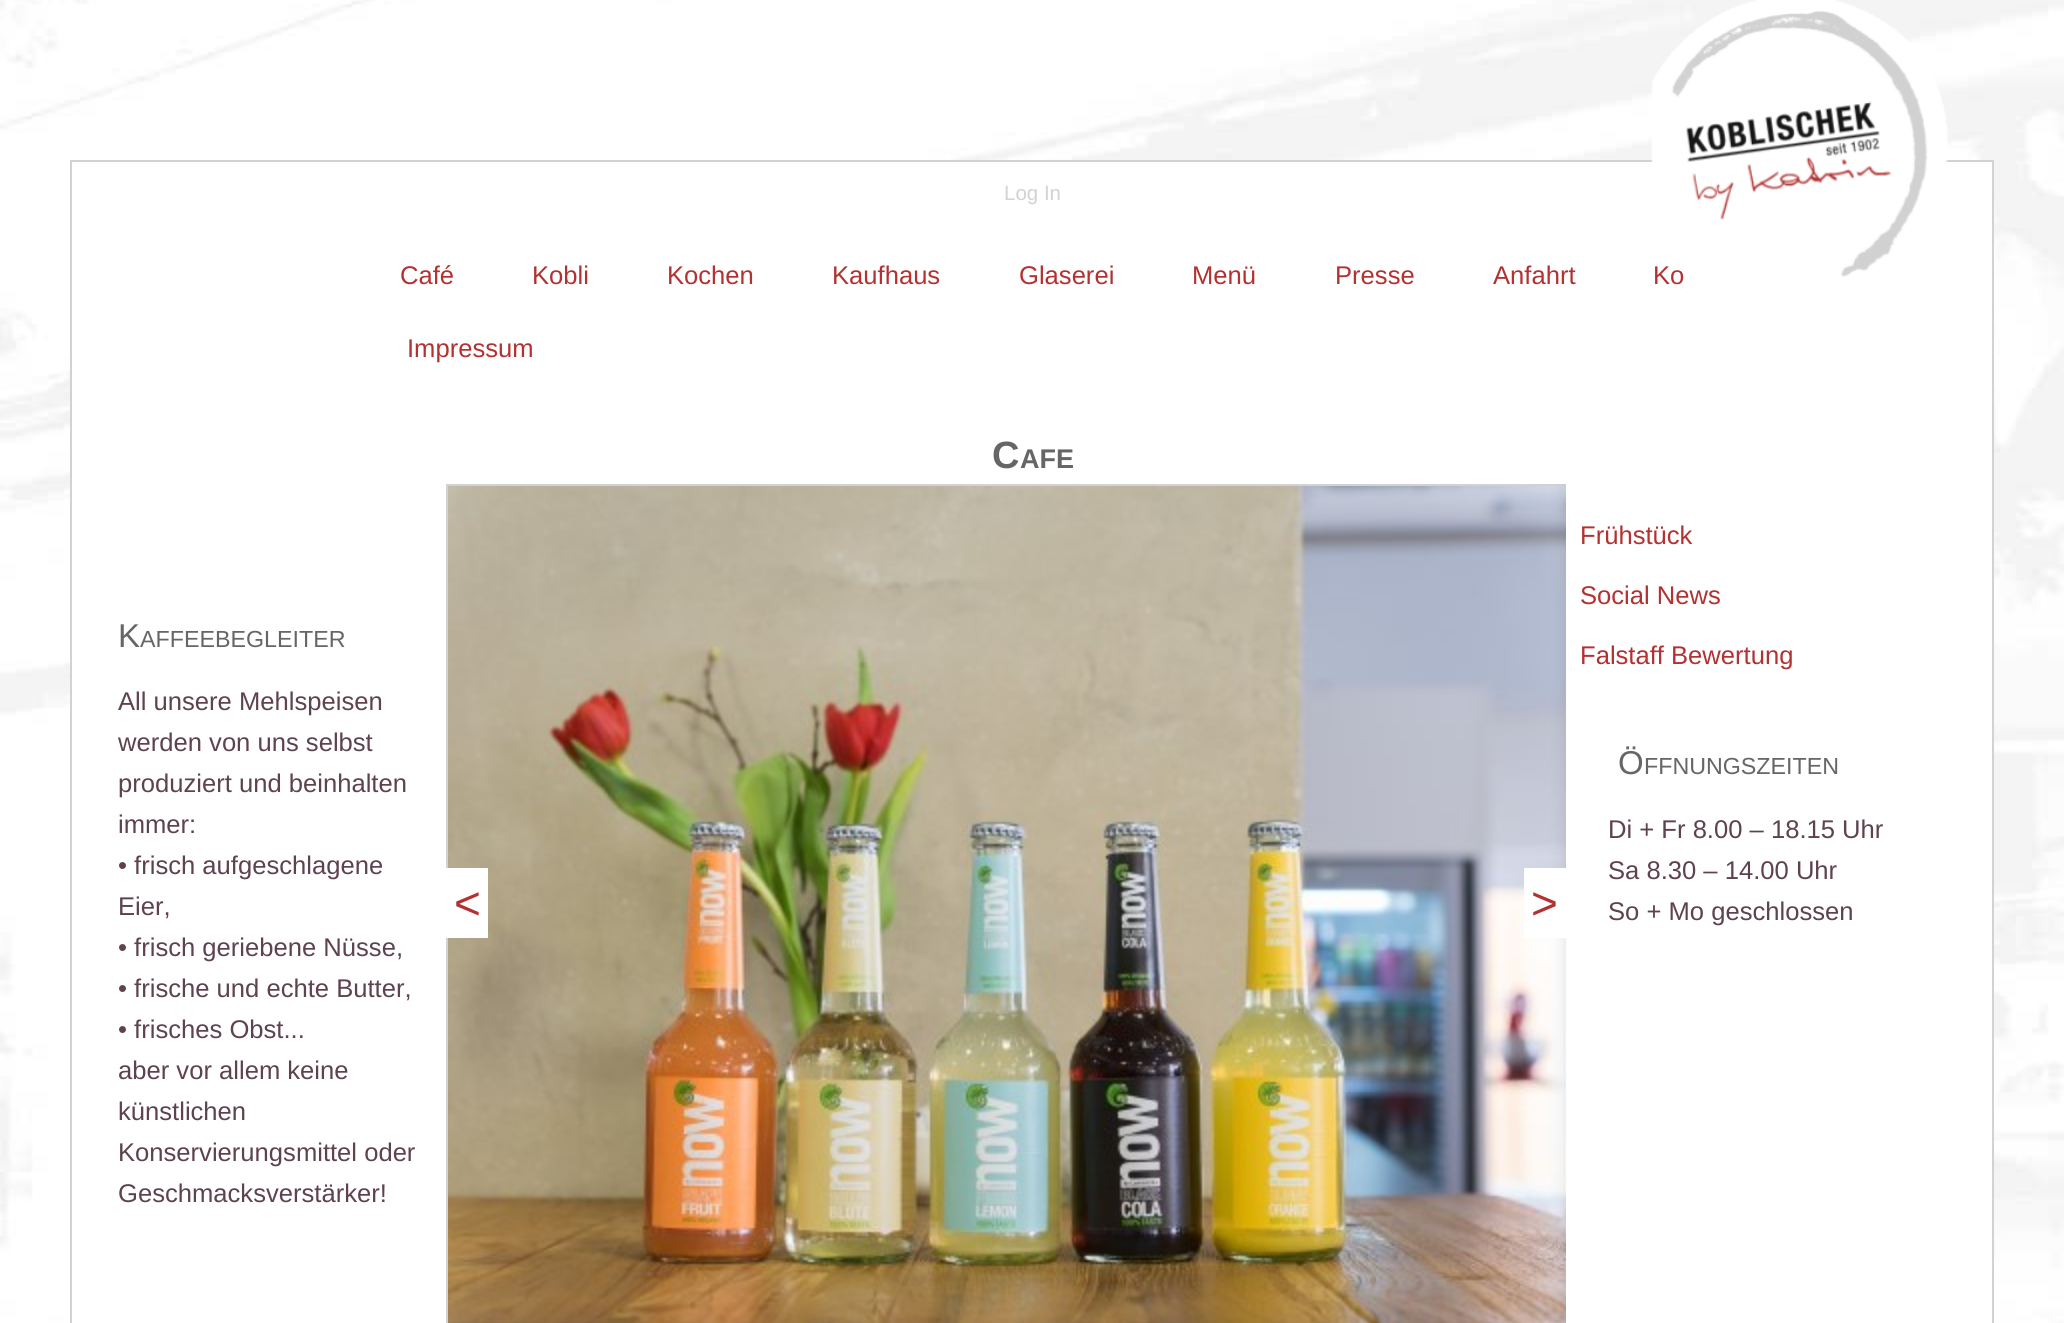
#include <cairo.h>
#include <math.h>
#include <stddef.h>

static cairo_t *c;
static void C(unsigned color){cairo_set_source_rgb(c, (color >> 16) / 255.0, (color >> 8 & 255) / 255.0, (color & 255) / 255.0);}
static void F(const char *family, double size, int italic, int bold){cairo_select_font_face(c, family, italic ? CAIRO_FONT_SLANT_ITALIC : CAIRO_FONT_SLANT_NORMAL,bold ? CAIRO_FONT_WEIGHT_BOLD : CAIRO_FONT_WEIGHT_NORMAL);cairo_set_font_size(c, size);}
static void T(double x, double y, const char *s){cairo_move_to(c, x, y);cairo_show_text(c, s);}
static void R(double x, double y, double w, double h){cairo_rectangle(c, x, y, w, h);cairo_fill(c);}
static void Q(double x, double y, double w, double h, double r){cairo_new_sub_path(c);cairo_arc(c, x + w - r, y + h - r, r, 0, M_PI / 2);cairo_arc(c, x + r, y + h - r, r, M_PI / 2, M_PI);cairo_arc(c, x + r, y + r, r, M_PI, 1.5 * M_PI);cairo_arc(c, x + w - r, y + r, r, 1.5 * M_PI, 2 * M_PI);cairo_close_path(c);}
static void S(double x, double y, double w, double h, double r, double blur, double alpha){cairo_push_group_with_content(c, CAIRO_CONTENT_ALPHA);cairo_set_operator(c, CAIRO_OPERATOR_SOURCE);for (int i = 15; i >= -15 && fmin(w, h) + blur * i / 3 > 0; i -= 2) {double e = blur * i / 6;cairo_set_source_rgba(c, 0, 0, 0, alpha * erfc((i - 1) / 8.5) / 2);Q(x - e, y - e, w + 2 * e, h + 2 * e, fmax(0, fmin(r + e + blur * .6, fmin(w, h) / 2 + e)));cairo_fill(c);}cairo_pattern_t *soft = cairo_pop_group(c);cairo_mask(c, soft);cairo_pattern_destroy(soft);}
static void I(const char *path, double x, double y, double w, double h){cairo_surface_t *image = cairo_image_surface_create_from_png(path);cairo_save(c);cairo_set_source_surface(c, image, x, y);cairo_rectangle(c, x, y, w, h);cairo_fill(c);cairo_restore(c);cairo_surface_destroy(image);}
int main(void) {
cairo_surface_t *surface = cairo_image_surface_create(CAIRO_FORMAT_RGB24, 2064, 1323);
c = cairo_create(surface);
cairo_font_options_t *options = cairo_font_options_create();
cairo_font_options_set_hint_metrics(options, CAIRO_HINT_METRICS_OFF);
cairo_font_options_set_hint_style(options, CAIRO_HINT_STYLE_NONE);
cairo_set_font_options(c, options);
cairo_set_miter_limit(c, 4);
C(0xffffff);
cairo_paint(c);
I("1.png",0,0,2064,1323);
C(0xffffff);
cairo_rectangle(c,71,161,1922,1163);
cairo_fill_preserve(c);
C(0xd2d2d2);
cairo_stroke(c);
F("Liberation Sans",25.6,0,0);
C(0xb33131);
T(1653,284,"Ko");
I("2.png",1651,0,297,283);
F("Liberation Sans",20.5,0,0);
C(0xd2d2d2);
T(1004,200,"Log In");
F("Liberation Sans",25.6,0,0);
C(0xb33131);
T(400,284,"Café");
T(532,284,"Kobli");
T(667,284,"Kochen");
T(832,284,"Kaufhaus");
T(1019,284,"Glaserei");
T(1192,284,"Menü");
T(1335,284,"Presse");
T(1493,284,"Anfahrt");
T(407,357,"Impressum");
F("Liberation Sans",38,0,1);
C(0x666666);
T(992,468,"C");
F("Liberation Sans",27,0,1);
T(1020,468,"AFE");
F("Liberation Sans",33,0,0);
T(118,647,"K");
F("Liberation Sans",23.25,0,0);
T(140,647,"AFFEEBEGLEITER");
F("Liberation Sans",25.6,0,0);
C(0x5e4250);
T(118,710,"All unsere Mehlspeisen");
T(118,751,"werden von uns selbst");
T(118,792,"produziert und beinhalten");
T(118,833,"immer:");
T(118,874,"• frisch aufgeschlagene");
T(118,915,"Eier,");
T(118,956,"• frisch geriebene Nüsse,");
T(118,997,"• frische und echte Butter,");
T(118,1038,"• frisches Obst...");
T(118,1079,"aber vor allem keine");
T(118,1120,"künstlichen");
T(118,1161,"Konservierungsmittel oder");
T(118,1202,"Geschmacksverstärker!");
cairo_save(c);
cairo_rectangle(c,446,484,1120,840);
cairo_clip(c);
cairo_rectangle(c,447,485,1122,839);
C(0xd2d2d2);
cairo_stroke(c);
cairo_restore(c);
I("3.png",448,486,1118,837);
cairo_save(c);
cairo_rectangle(c,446,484,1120,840);
cairo_clip(c);
C(0x000000);
S(1568,488,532,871,6,10,.15);
cairo_restore(c);
C(0xffffff);
R(446,868,42,70);
F("Liberation Sans",46,0,0);
C(0xb33131);
T(454,919,"<");
C(0xffffff);
R(1524,868,42,70);
C(0xb33131);
T(1531,919,">");
F("Liberation Sans",25.6,0,0);
T(1580,544,"Frühstück");
T(1580,604,"Social News");
T(1580,664,"Falstaff Bewertung");
F("Liberation Sans",33,0,0);
C(0x666666);
T(1618,774,"Ö");
F("Liberation Sans",23.25,0,0);
T(1644,774,"FFNUNGSZEITEN");
F("Liberation Sans",25.6,0,0);
C(0x5e4250);
T(1608,838,"Di + Fr 8.00 – 18.15 Uhr");
T(1608,879,"Sa 8.30 – 14.00 Uhr");
T(1608,920,"So + Mo geschlossen");
cairo_surface_write_to_png(surface, "o.png");
cairo_font_options_destroy(options);
cairo_destroy(c);
cairo_surface_destroy(surface);
return 0;
}
